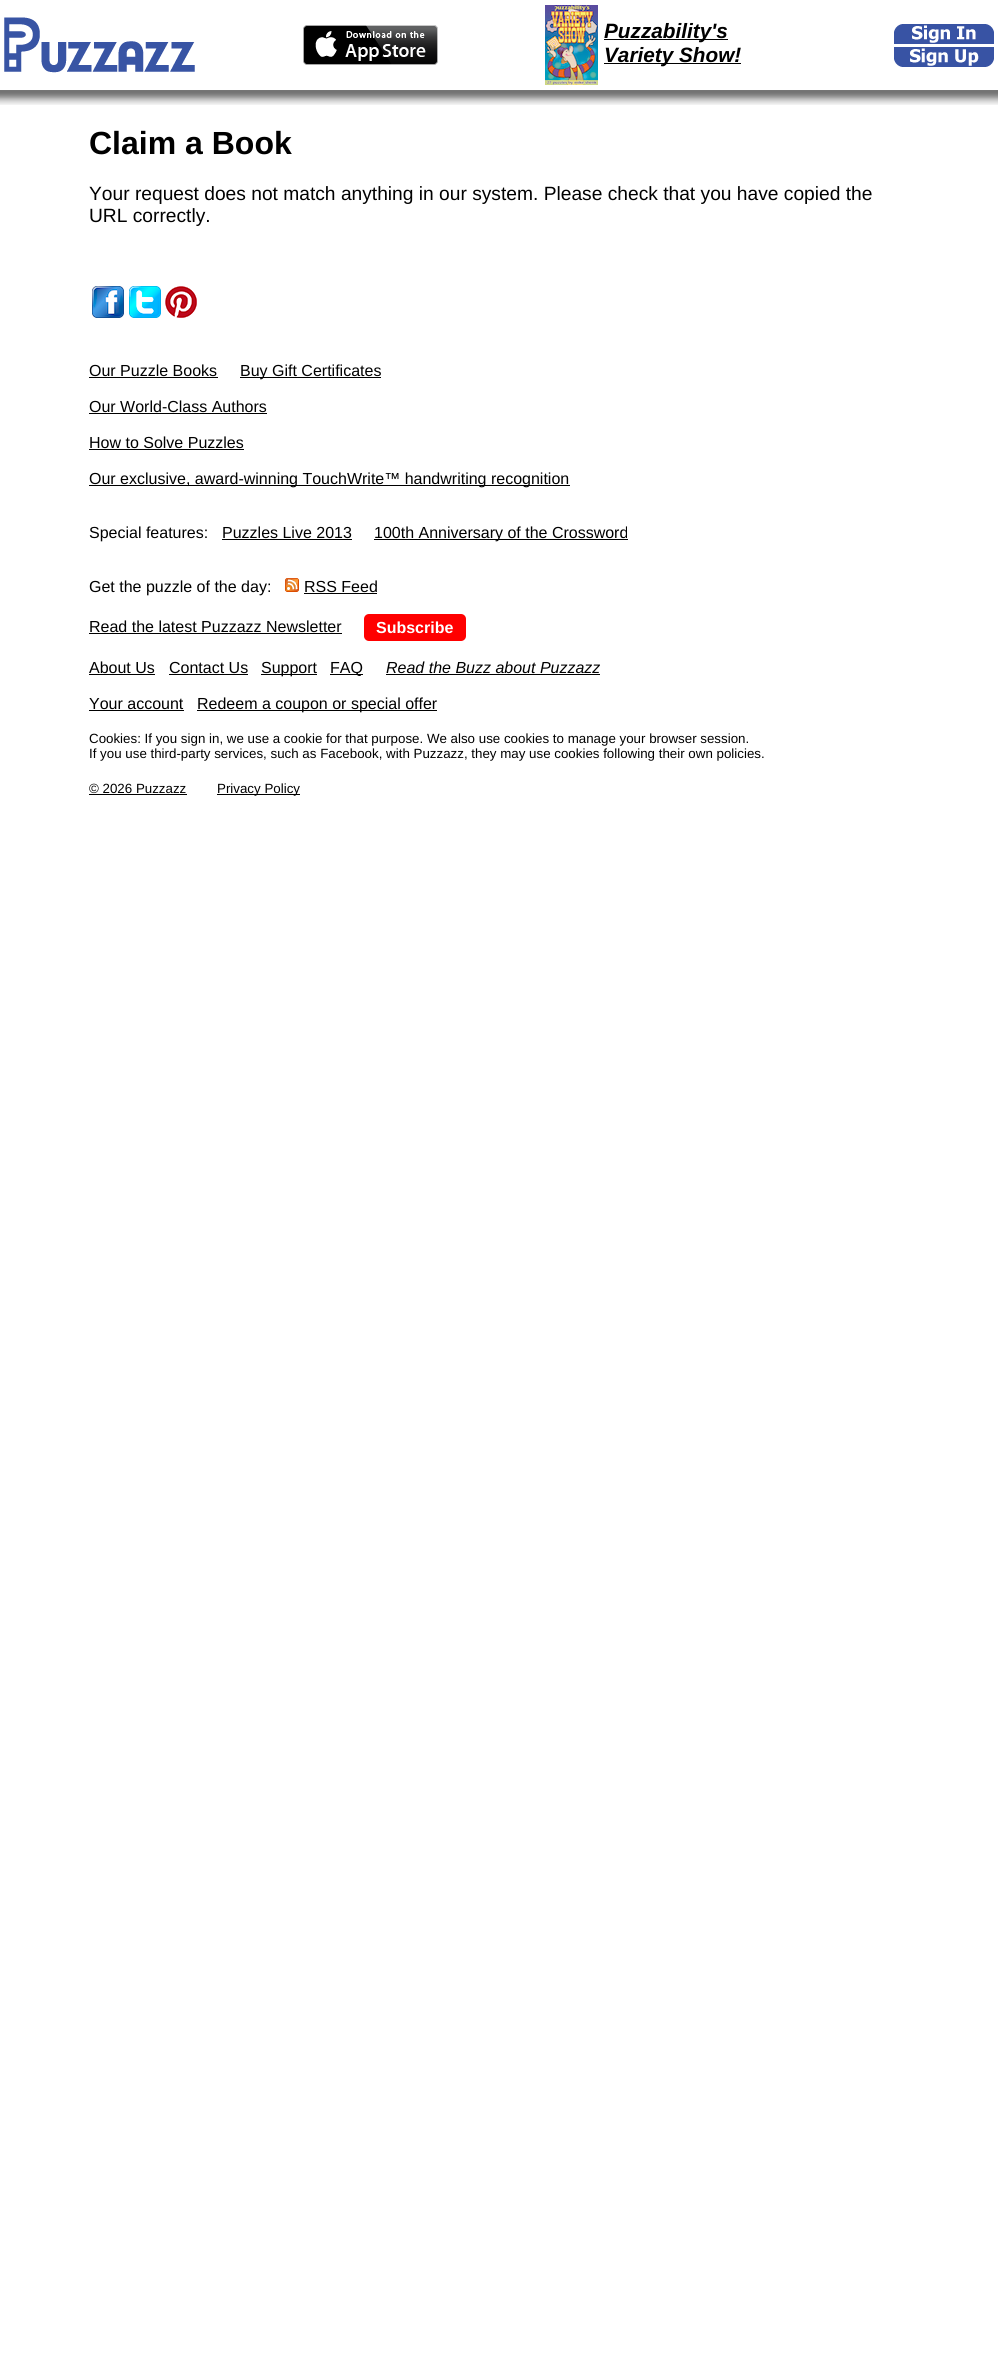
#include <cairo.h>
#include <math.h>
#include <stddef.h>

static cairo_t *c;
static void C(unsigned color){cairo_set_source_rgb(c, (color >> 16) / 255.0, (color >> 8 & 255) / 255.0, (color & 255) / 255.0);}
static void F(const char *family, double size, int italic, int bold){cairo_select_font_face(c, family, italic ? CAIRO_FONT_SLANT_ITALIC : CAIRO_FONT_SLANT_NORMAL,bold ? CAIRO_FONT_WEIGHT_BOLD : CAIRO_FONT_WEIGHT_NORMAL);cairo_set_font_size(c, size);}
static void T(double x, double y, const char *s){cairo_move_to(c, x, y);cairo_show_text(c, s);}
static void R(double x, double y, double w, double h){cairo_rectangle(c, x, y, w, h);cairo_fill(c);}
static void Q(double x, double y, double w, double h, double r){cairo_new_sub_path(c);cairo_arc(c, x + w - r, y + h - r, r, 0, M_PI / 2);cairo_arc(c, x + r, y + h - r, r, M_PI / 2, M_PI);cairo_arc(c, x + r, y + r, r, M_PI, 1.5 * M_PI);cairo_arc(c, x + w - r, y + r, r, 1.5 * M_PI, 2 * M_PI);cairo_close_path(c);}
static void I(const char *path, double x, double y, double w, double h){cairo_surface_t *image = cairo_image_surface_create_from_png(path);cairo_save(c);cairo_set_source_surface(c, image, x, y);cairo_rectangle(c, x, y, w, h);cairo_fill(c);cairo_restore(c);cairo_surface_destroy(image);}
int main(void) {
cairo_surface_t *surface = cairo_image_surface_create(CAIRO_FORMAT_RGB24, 998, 2371);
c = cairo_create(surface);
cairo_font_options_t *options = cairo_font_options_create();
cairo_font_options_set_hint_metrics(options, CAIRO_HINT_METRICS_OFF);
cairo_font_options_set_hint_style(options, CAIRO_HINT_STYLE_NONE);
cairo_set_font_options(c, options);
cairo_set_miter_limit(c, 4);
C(0xffffff);
cairo_paint(c);
I("1.png",4,17,191,56);
I("2.png",303,25,135,40);
I("3.png",545,5,53,80);
C(0x000000);
R(604,39,124,1);
F("Liberation Sans",20.75,1,1);
T(604,38,"Puzzability's");
R(604,63,137,1);
T(604,62,"Variety Show!");
I("4.png",894,24,100,20);
I("5.png",894,47,100,20);
I("6.png",0,90,998,15);
F("Liberation Sans",32,0,1);
T(89,154,"Claim a Book");
F("Liberation Sans",19.2,0,0);
T(89,200,"Your request does not match anything in our system. Please check that you have copied the");
T(89,222,"URL correctly.");
I("7.png",92,286,32,32);
I("8.png",129,286,32,32);
I("9.png",165,286,32,32);
F("Liberation Sans",16,0,0);
T(89,376,"Our Puzzle Books");
R(89,377,129,1);
R(240,377,141,1);
T(240,376,"Buy Gift Certificates");
T(89,412,"Our World-Class Authors");
R(89,413,178,1);
T(89,448,"How to Solve Puzzles");
R(89,449,155,1);
R(89,485,481,1);
T(89,484,"Our exclusive, award-winning TouchWrite™ handwriting recognition");
T(89,538,"Special features:");
T(222,538,"Puzzles Live 2013");
R(222,539,130,1);
R(374,539,254,1);
T(374,538,"100th Anniversary of the Crossword");
T(89,592,"Get the puzzle of the day:");
I("10.png",285,578,14,14);
T(304,592,"RSS Feed");
R(304,593,73,1);
T(89,632,"Read the latest Puzzazz Newsletter");
R(89,633,253,1);
C(0xff0000);
Q(364,614,102,27,5);
cairo_fill(c);
F("Liberation Sans",16,0,1);
C(0xffffff);
T(376,633,"Subscribe");
F("Liberation Sans",16,0,0);
C(0x000000);
T(89,673,"About Us");
R(89,674,66,1);
T(169,673,"Contact Us");
R(169,674,79,1);
R(261,674,56,1);
T(261,673,"Support");
R(330,674,33,1);
T(330,673,"FAQ");
F("Liberation Sans",16,1,0);
T(386,673,"Read the Buzz about Puzzazz");
R(386,674,214,1);
F("Liberation Sans",16,0,0);
T(89,709,"Your account");
R(89,710,95,1);
R(197,710,240,1);
T(197,709,"Redeem a coupon or special offer");
F("Liberation Sans",13.33,0,0);
T(89,743,"Cookies: If you sign in, we use a cookie for that purpose. We also use cookies to manage your browser session.");
T(89,758,"If you use third-party services, such as Facebook, with Puzzazz, they may use cookies following their own policies.");
T(89,793,"© 2026 Puzzazz");
R(89,794,98,1);
R(217,794,83,1);
T(217,793,"Privacy Policy");
cairo_surface_write_to_png(surface, "o.png");
cairo_font_options_destroy(options);
cairo_destroy(c);
cairo_surface_destroy(surface);
return 0;
}
